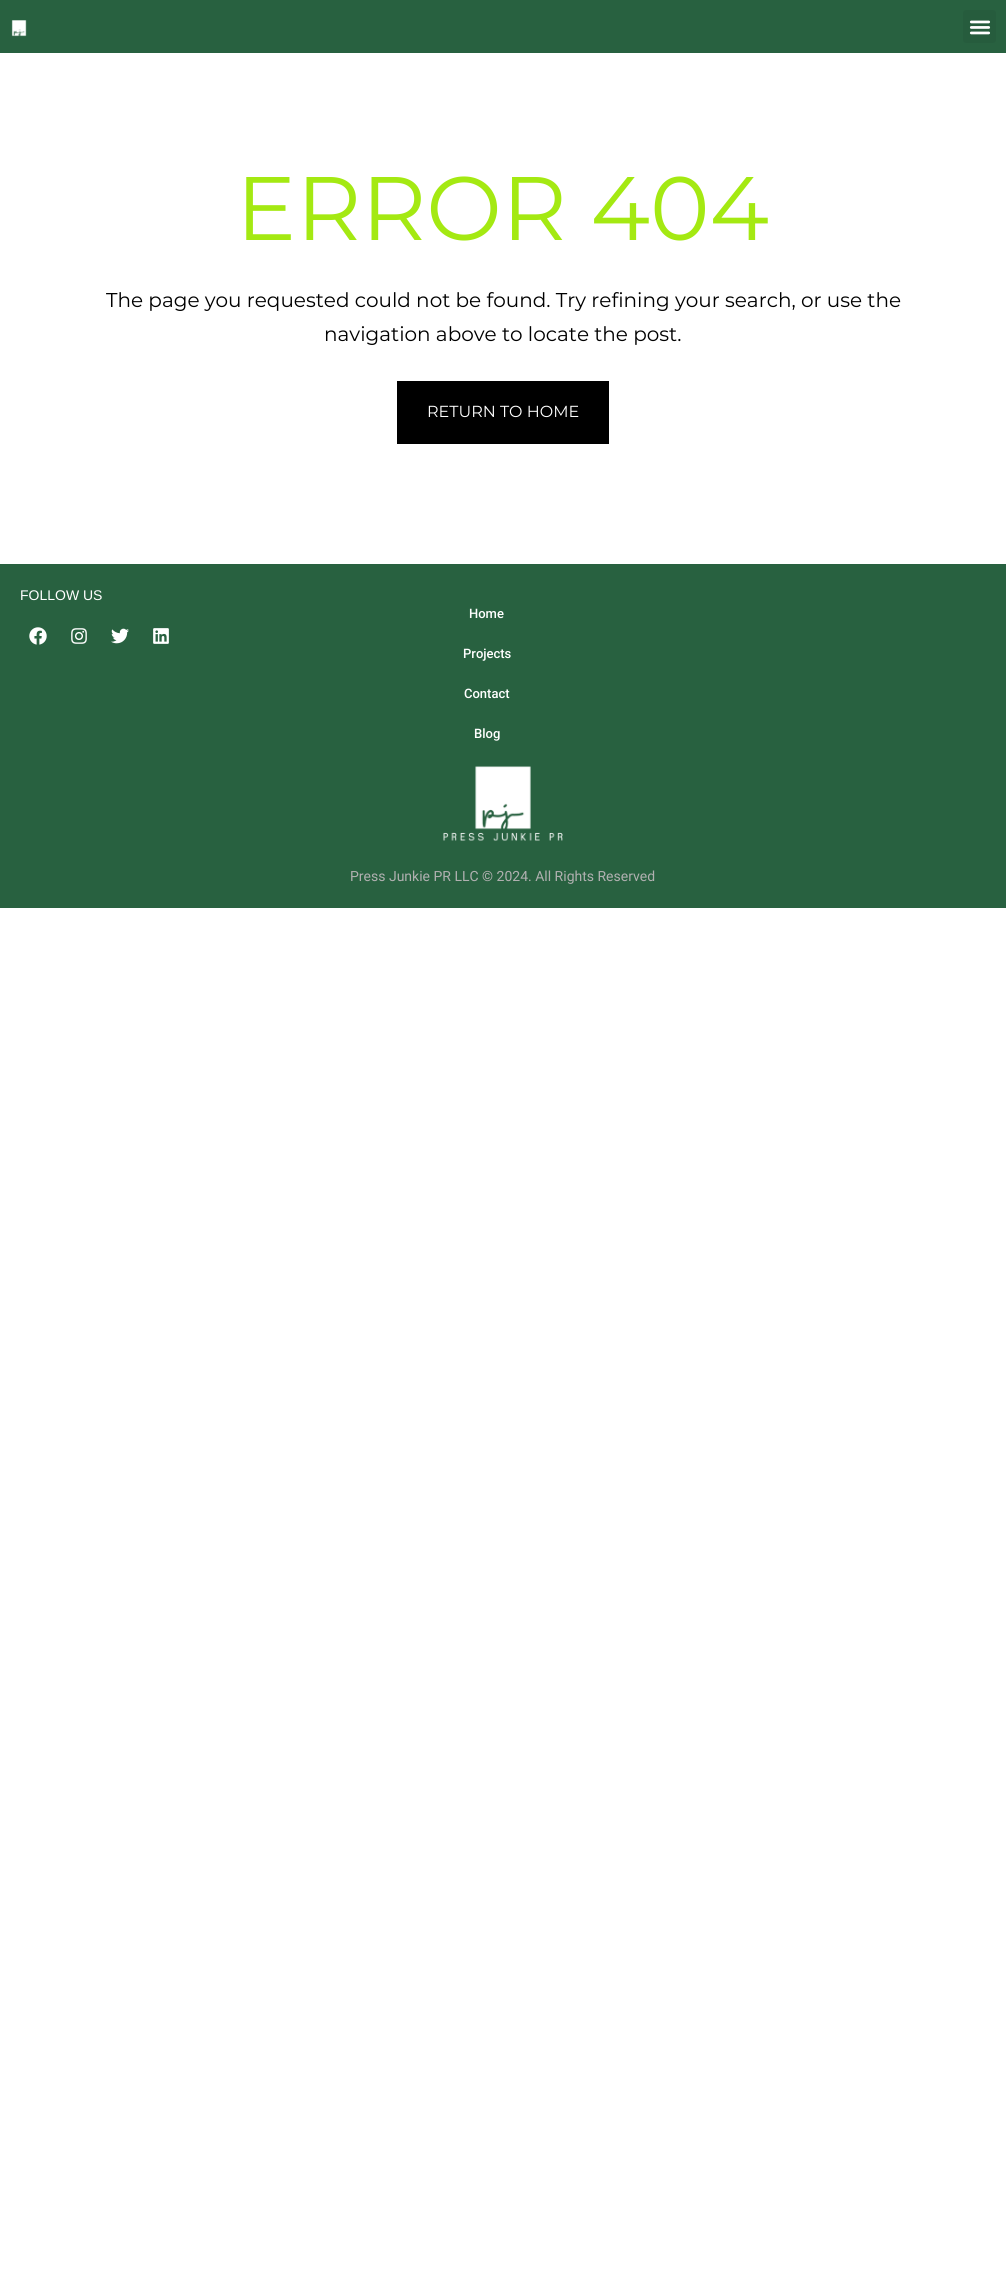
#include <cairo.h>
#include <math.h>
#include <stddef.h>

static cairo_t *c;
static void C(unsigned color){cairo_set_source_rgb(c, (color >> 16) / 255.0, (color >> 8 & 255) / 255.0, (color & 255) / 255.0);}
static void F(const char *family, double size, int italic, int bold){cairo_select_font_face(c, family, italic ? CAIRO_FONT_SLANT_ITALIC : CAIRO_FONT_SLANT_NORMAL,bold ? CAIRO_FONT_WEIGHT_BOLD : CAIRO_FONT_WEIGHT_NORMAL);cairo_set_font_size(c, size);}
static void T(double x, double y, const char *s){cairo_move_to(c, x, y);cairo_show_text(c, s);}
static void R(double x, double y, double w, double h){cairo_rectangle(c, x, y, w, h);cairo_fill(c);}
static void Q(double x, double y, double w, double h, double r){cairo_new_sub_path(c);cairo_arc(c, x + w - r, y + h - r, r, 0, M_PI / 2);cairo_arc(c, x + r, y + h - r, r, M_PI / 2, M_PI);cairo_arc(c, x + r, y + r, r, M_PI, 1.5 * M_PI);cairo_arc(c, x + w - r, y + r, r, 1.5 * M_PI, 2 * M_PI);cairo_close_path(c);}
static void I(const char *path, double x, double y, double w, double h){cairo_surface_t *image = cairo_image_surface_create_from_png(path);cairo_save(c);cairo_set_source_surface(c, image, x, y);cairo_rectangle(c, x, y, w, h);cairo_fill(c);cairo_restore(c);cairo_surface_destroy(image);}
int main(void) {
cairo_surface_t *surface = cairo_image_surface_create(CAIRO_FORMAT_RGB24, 1006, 2282);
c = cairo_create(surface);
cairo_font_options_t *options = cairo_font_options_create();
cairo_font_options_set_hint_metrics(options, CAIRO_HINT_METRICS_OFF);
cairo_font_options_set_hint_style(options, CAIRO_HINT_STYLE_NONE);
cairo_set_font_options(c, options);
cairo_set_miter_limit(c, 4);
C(0xffffff);
cairo_paint(c);
C(0x286140);
R(0,0,1006,53);
I("1.png",11,20,16,17);
C(0x265c3d);
Q(963,10,33,33,3);
cairo_fill(c);
I("2.png",969,20,22,15);
F("Montserrat",90,0,0);
C(0xa4e912);
T(236,240,"ERROR 404");
F("Montserrat",20,0,0);
C(0x000000);
T(106,307,"The page you requested could not be found. Try refining your search, or use the");
T(324,341,"navigation above to locate the post.");
R(397,381,212,63);
F("Montserrat",16,0,0);
C(0xffffff);
T(427,417,"RETURN TO HOME");
C(0x286140);
R(0,564,1006,344);
F("Liberation Sans",14,0,0);
C(0xffffff);
T(20,600,"FOLLOW US");
I("3.png",29,627,18,18);
I("4.png",71,628,16,16);
I("5.png",111,628,18,16);
I("6.png",153,628,16,16);
F("Roboto Medium",13,0,0);
T(469,618,"Home");
T(463,658,"Projects");
T(464,698,"Contact");
T(474,738,"Blog");
I("7.png",443,766,120,75);
F("Roboto",14,0,0);
C(0xb0b0b0);
T(350,881,"Press Junkie PR LLC © 2024. All Rights Reserved");
cairo_surface_write_to_png(surface, "o.png");
cairo_font_options_destroy(options);
cairo_destroy(c);
cairo_surface_destroy(surface);
return 0;
}
